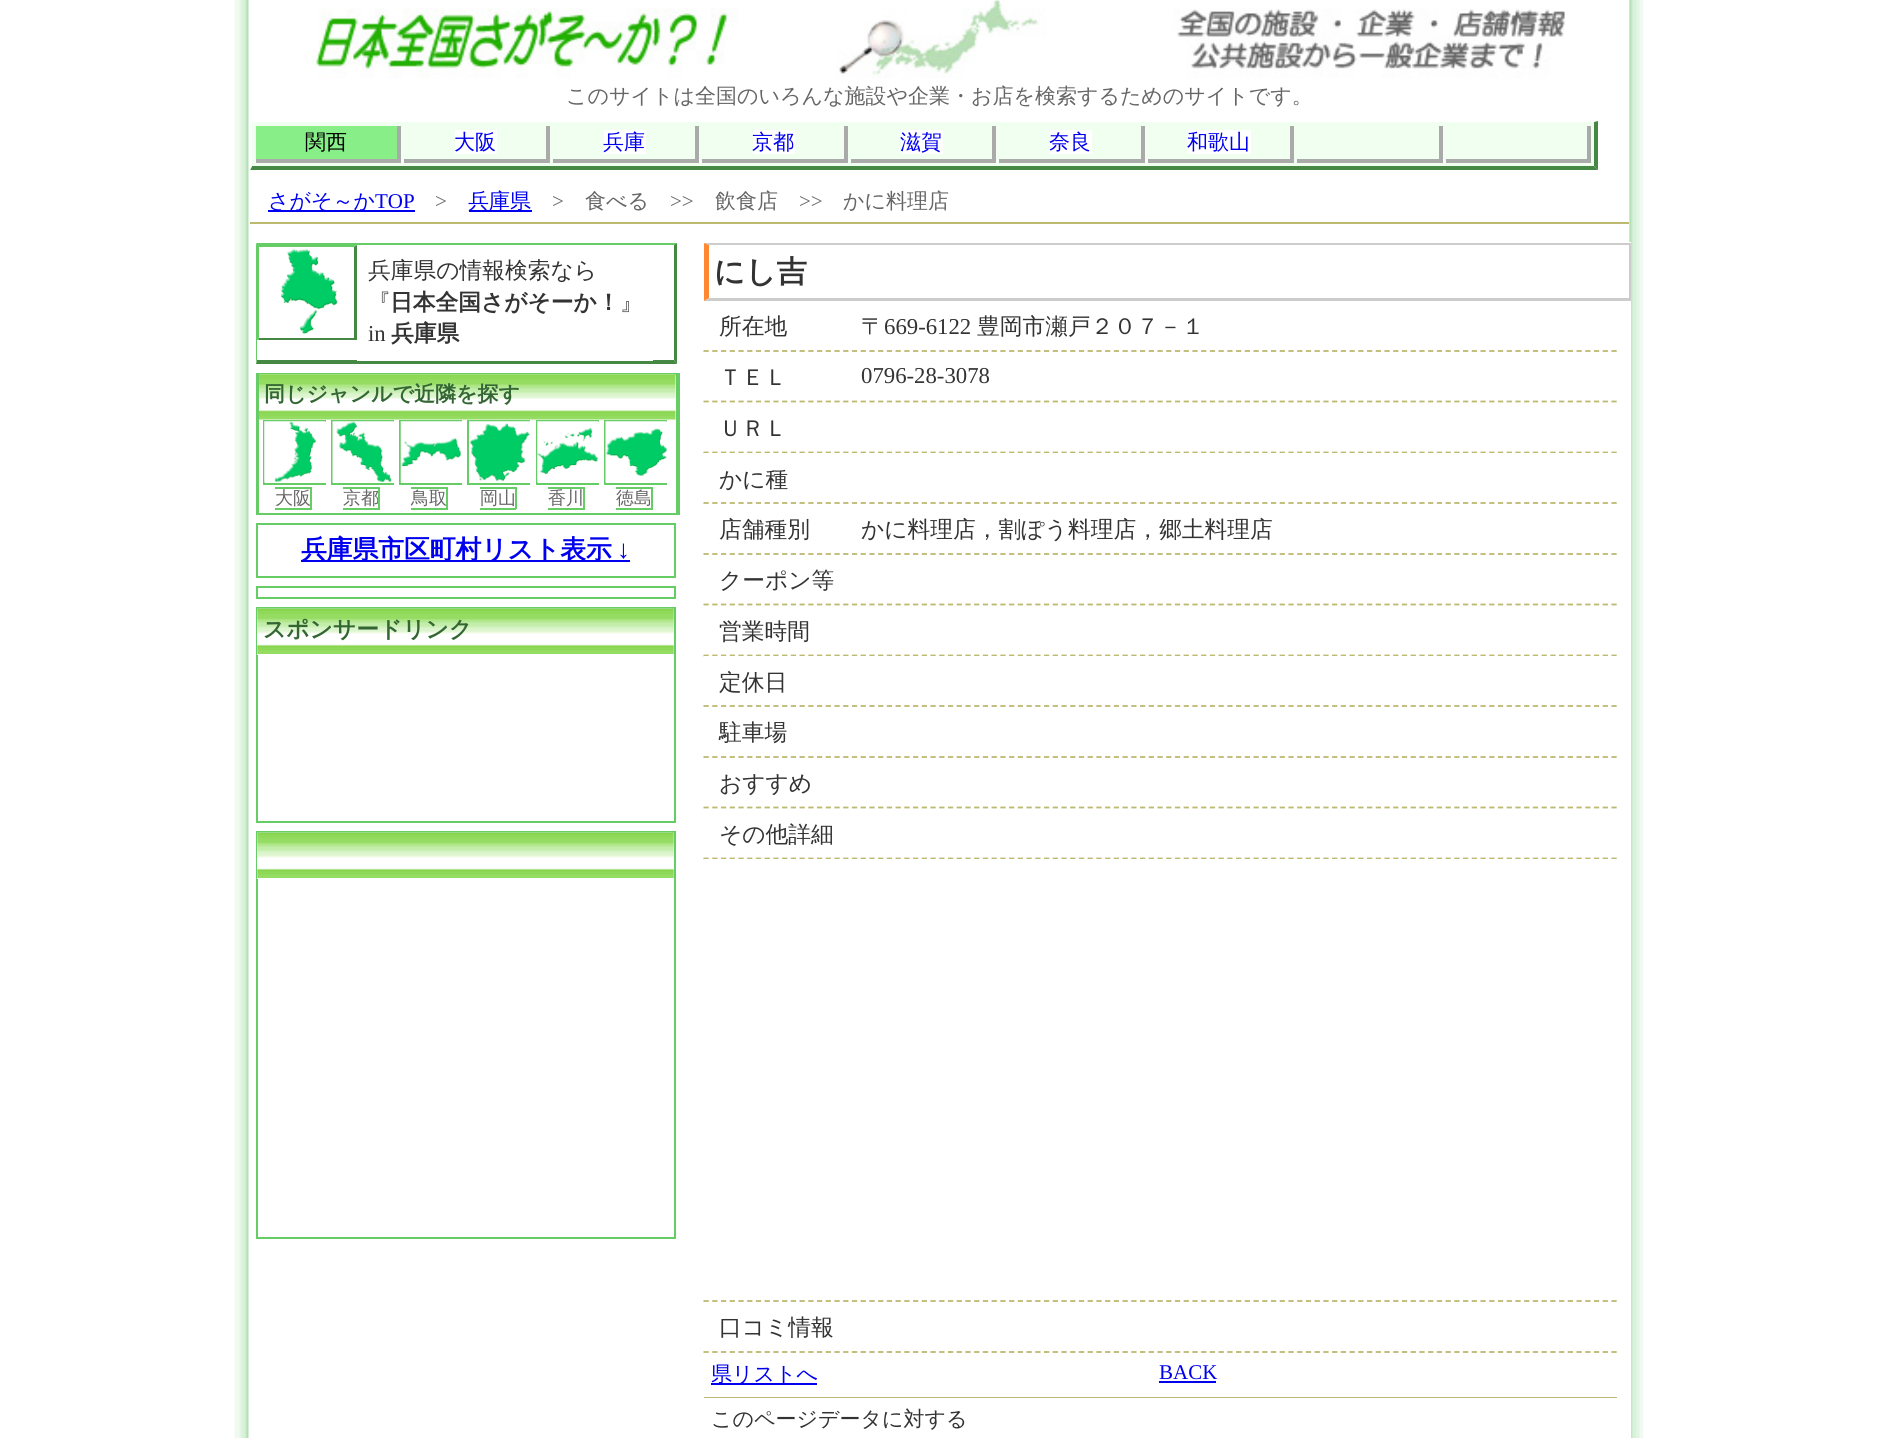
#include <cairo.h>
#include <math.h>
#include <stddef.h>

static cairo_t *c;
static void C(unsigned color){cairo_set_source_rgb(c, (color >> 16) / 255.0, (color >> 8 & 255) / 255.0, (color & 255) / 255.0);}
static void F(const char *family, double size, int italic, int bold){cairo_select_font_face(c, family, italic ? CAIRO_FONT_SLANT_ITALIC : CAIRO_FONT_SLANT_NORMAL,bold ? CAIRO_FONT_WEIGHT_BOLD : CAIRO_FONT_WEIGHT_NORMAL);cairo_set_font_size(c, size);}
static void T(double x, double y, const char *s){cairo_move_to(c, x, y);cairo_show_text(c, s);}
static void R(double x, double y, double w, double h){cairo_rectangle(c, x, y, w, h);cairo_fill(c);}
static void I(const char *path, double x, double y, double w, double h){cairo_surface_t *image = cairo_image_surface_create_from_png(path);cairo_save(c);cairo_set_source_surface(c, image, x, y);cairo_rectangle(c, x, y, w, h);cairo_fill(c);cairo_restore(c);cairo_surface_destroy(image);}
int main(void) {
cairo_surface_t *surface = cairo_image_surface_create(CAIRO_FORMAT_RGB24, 1878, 1438);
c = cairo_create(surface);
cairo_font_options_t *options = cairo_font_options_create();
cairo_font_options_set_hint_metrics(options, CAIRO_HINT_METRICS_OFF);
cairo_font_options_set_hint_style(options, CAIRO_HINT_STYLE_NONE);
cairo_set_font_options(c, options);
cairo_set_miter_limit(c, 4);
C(0xffffff);
cairo_paint(c);
I("1.png",234,0,1410,1438);
C(0xffffff);
R(1628,0,1,1438);
I("2.png",305,0,1260,79);
F("WenQuanYi Zen Hei Medium",21,0,0);
C(0x666666);
T(566,103,"このサイトは全国のいろんな施設や企業・お店を検索するためのサイトです。");
C(0xf0fff0);
R(250,121,1348,49);
C(0xffffff);
cairo_new_path(c);
cairo_move_to(c,250,121);
cairo_line_to(c,1598,121);
cairo_line_to(c,1594,122);
cairo_line_to(c,252,122);
cairo_close_path(c);
cairo_fill(c);
C(0x448844);
cairo_new_path(c);
cairo_move_to(c,1598,121);
cairo_line_to(c,1598,170);
cairo_line_to(c,1594,166);
cairo_line_to(c,1594,122);
cairo_close_path(c);
cairo_fill(c);
cairo_new_path(c);
cairo_move_to(c,1598,170);
cairo_line_to(c,250,170);
cairo_line_to(c,252,166);
cairo_line_to(c,1594,166);
cairo_close_path(c);
cairo_fill(c);
C(0xffffff);
cairo_new_path(c);
cairo_move_to(c,250,170);
cairo_line_to(c,250,121);
cairo_line_to(c,252,122);
cairo_line_to(c,252,166);
cairo_close_path(c);
cairo_fill(c);
C(0x88ee88);
R(256,126,141,33);
C(0xaaaaaa);
R(397,126,4,37);
R(256,159,145,4);
C(0x000000);
T(305,149,"関西");
C(0xaaaaaa);
R(546,126,4,37);
R(404,159,146,4);
C(0xffffff);
R(455,130,42,24);
C(0x0000ee);
T(454,149,"大阪");
C(0xaaaaaa);
R(695,126,4,37);
R(553,159,145,4);
C(0xffffff);
R(604,130,42,24);
C(0x0000ee);
T(603,149,"兵庫");
C(0xaaaaaa);
R(844,126,4,37);
R(702,159,145,4);
C(0xffffff);
R(753,130,42,24);
C(0x0000ee);
T(752,149,"京都");
C(0xaaaaaa);
R(992,126,4,37);
R(851,159,145,4);
C(0xffffff);
R(901,130,42,24);
C(0x0000ee);
T(900,149,"滋賀");
C(0xaaaaaa);
R(1141,126,4,37);
R(999,159,146,4);
C(0xffffff);
R(1050,130,42,24);
C(0x0000ee);
T(1049,149,"奈良");
C(0xaaaaaa);
R(1290,126,4,37);
R(1148,159,145,4);
C(0xffffff);
R(1188,130,63,24);
C(0x0000ee);
T(1187,149,"和歌山");
C(0xaaaaaa);
R(1439,126,4,37);
R(1297,159,145,4);
R(1587,126,4,37);
R(1446,159,145,4);
C(0xbdb971);
R(250,222,1379,2);
C(0x0000ee);
R(268,210,147,2);
T(268,208,"さがそ～か");
F("Liberation Serif",21,0,0);
T(375,208,"TOP");
C(0x666666);
T(435,208,">");
C(0x0000ee);
R(469,210,63,2);
F("WenQuanYi Zen Hei Medium",21,0,0);
T(468,208,"兵庫県");
F("Liberation Serif",21,0,0);
C(0x666666);
T(552,208,">");
F("WenQuanYi Zen Hei Medium",21,0,0);
T(585,208,"食べる");
F("Liberation Serif",21,0,0);
T(670,208,">>");
F("WenQuanYi Zen Hei Medium",21,0,0);
T(715,208,"飲食店");
F("Liberation Serif",21,0,0);
T(799,208,">>");
F("WenQuanYi Zen Hei Medium",21,0,0);
T(843,208,"かに料理店");
C(0x66cc66);
cairo_new_path(c);
cairo_move_to(c,256,243);
cairo_line_to(c,677,243);
cairo_line_to(c,674,245);
cairo_line_to(c,257,245);
cairo_close_path(c);
cairo_fill(c);
C(0x448844);
cairo_new_path(c);
cairo_move_to(c,677,243);
cairo_line_to(c,677,364);
cairo_line_to(c,674,360);
cairo_line_to(c,674,245);
cairo_close_path(c);
cairo_fill(c);
cairo_new_path(c);
cairo_move_to(c,677,364);
cairo_line_to(c,256,364);
cairo_line_to(c,257,360);
cairo_line_to(c,674,360);
cairo_close_path(c);
cairo_fill(c);
C(0x66cc66);
cairo_new_path(c);
cairo_move_to(c,256,364);
cairo_line_to(c,256,243);
cairo_line_to(c,257,245);
cairo_line_to(c,257,360);
cairo_close_path(c);
cairo_fill(c);
cairo_new_path(c);
cairo_move_to(c,257,245);
cairo_line_to(c,357,245);
cairo_line_to(c,354,247);
cairo_line_to(c,259,247);
cairo_close_path(c);
cairo_fill(c);
C(0x448844);
cairo_new_path(c);
cairo_move_to(c,357,245);
cairo_line_to(c,357,340);
cairo_line_to(c,354,338);
cairo_line_to(c,354,247);
cairo_close_path(c);
cairo_fill(c);
R(257,338,100,2);
C(0x66cc66);
R(257,245,2,95);
I("3.png",280,249,58,85);
C(0xffffff);
R(357,360,296,1);
F("WenQuanYi Zen Hei Medium",22.75,0,0);
C(0x333333);
T(368,278,"兵庫県の情報検索なら");
T(368,310,"『");
F("WenQuanYi Zen Hei",22.75,0,1);
T(390,310,"日本全国さがそーか！");
F("WenQuanYi Zen Hei Medium",22.75,0,0);
T(620,310,"』");
F("Liberation Serif",22.75,0,0);
T(368,341,"in");
F("WenQuanYi Zen Hei",22.75,0,1);
T(391,341,"兵庫県");
C(0x66cc66);
R(256,373,423,2);
R(676,373,4,142);
R(256,513,423,2);
R(256,373,4,142);
C(0xffffff);
R(259,375,1,138);
I("4.png",259,374,417,46);
F("WenQuanYi Zen Hei",21,0,1);
C(0x336633);
T(264,401,"同じジャンルで近隣を探す");
C(0x66cc66);
R(263,420,63,2);
R(263,483,63,2);
R(263,420,2,65);
I("5.png",264,421,62,62);
F("WenQuanYi Zen Hei Medium",18,0,0);
C(0x666666);
T(275,504,"大阪");
C(0x66cc66);
R(275,487,37,2);
R(310,487,2,22);
R(275,508,37,2);
R(331,420,63,2);
R(331,483,63,2);
R(331,420,2,65);
I("6.png",332,421,62,62);
C(0x666666);
T(343,504,"京都");
C(0x66cc66);
R(343,487,37,2);
R(378,487,2,22);
R(343,508,37,2);
R(399,420,63,2);
R(399,483,63,2);
R(399,420,2,65);
I("7.png",400,421,62,62);
C(0x666666);
T(411,504,"鳥取");
C(0x66cc66);
R(411,487,37,2);
R(446,487,2,22);
R(411,508,37,2);
R(467,420,63,2);
I("8.png",469,421,61,61);
C(0x666666);
T(480,504,"岡山");
C(0x66cc66);
R(467,483,63,2);
R(467,420,2,65);
R(480,487,36,2);
R(515,487,2,22);
R(480,508,36,2);
R(536,420,63,2);
R(536,483,63,2);
R(536,420,2,65);
I("9.png",537,421,62,62);
C(0x666666);
T(548,504,"香川");
C(0x66cc66);
R(548,487,37,2);
R(583,487,2,22);
R(548,508,37,2);
R(604,420,63,2);
R(604,483,63,2);
R(604,420,2,65);
I("10.png",605,421,62,62);
C(0x666666);
T(616,504,"徳島");
C(0x66cc66);
R(616,487,37,2);
R(651,487,2,22);
R(616,508,37,2);
cairo_rectangle(c,257,524,418,53);
cairo_stroke(c);
C(0x0000ee);
R(301,560,329,2);
F("WenQuanYi Zen Hei",25.75,0,1);
T(301,558,"兵庫県市区町村リスト表示");
F("Liberation Serif",25.75,0,1);
T(617,558,"↓");
cairo_rectangle(c,257,587,418,11);
C(0x66cc66);
cairo_stroke(c);
cairo_rectangle(c,257,608,418,214);
cairo_stroke(c);
C(0xffffff);
R(257,609,1,46);
I("11.png",257,608,417,46);
F("WenQuanYi Zen Hei",22.75,0,1);
C(0x336633);
T(263,637,"スポンサードリンク");
cairo_rectangle(c,257,832,418,406);
C(0x66cc66);
cairo_stroke(c);
C(0xffffff);
R(257,833,1,46);
I("12.png",257,832,417,46);
R(1629,242,2,1196);
C(0xcccccc);
cairo_new_path(c);
cairo_move_to(c,704,243);
cairo_line_to(c,1631,243);
cairo_line_to(c,1629,245);
cairo_line_to(c,709,245);
cairo_close_path(c);
cairo_fill(c);
R(1629,243,2,58);
cairo_new_path(c);
cairo_move_to(c,1631,301);
cairo_line_to(c,704,301);
cairo_line_to(c,709,298);
cairo_line_to(c,1629,298);
cairo_close_path(c);
cairo_fill(c);
C(0xff8833);
cairo_new_path(c);
cairo_move_to(c,704,301);
cairo_line_to(c,704,243);
cairo_line_to(c,709,245);
cairo_line_to(c,709,298);
cairo_close_path(c);
cairo_fill(c);
F("WenQuanYi Zen Hei",30.5,0,1);
C(0x333333);
T(714,282,"にし吉");
cairo_new_path(c);
cairo_move_to(c,703.5,351);
cairo_line_to(c,1617,351);
C(0xbdb971);
cairo_set_line_width(c,1.8);
cairo_set_dash(c,(double[]){5.25,3.48},2,0);
cairo_stroke(c);
F("WenQuanYi Zen Hei Medium",22.75,0,0);
C(0x333333);
T(719,334,"所在地");
T(861,334,"〒");
F("Liberation Serif",22.75,0,0);
T(884,334,"669-6122");
F("WenQuanYi Zen Hei Medium",22.75,0,0);
T(977,334,"豊岡市瀬戸２０７－１");
cairo_new_path(c);
cairo_move_to(c,703.5,401.5);
cairo_line_to(c,1617,401.5);
C(0xbdb971);
cairo_stroke(c);
C(0x333333);
T(719,385,"ＴＥＬ");
F("Liberation Serif",22.75,0,0);
T(861,383,"0796-28-3078");
cairo_new_path(c);
cairo_move_to(c,703.5,452.5);
cairo_line_to(c,1617,452.5);
C(0xbdb971);
cairo_stroke(c);
F("WenQuanYi Zen Hei Medium",22.75,0,0);
C(0x333333);
T(719,436,"ＵＲＬ");
C(0xffffff);
R(704,453,913,1);
cairo_new_path(c);
cairo_move_to(c,703.5,503);
cairo_line_to(c,1617,503);
C(0xbdb971);
cairo_stroke(c);
C(0x333333);
T(719,487,"かに種");
cairo_new_path(c);
cairo_move_to(c,703.5,554);
cairo_line_to(c,1617,554);
C(0xbdb971);
cairo_stroke(c);
C(0x333333);
T(719,537,"店舗種別");
T(861,537,"かに料理店，割ぽう料理店，郷土料理店");
cairo_new_path(c);
cairo_move_to(c,703.5,604.5);
cairo_line_to(c,1617,604.5);
C(0xbdb971);
cairo_stroke(c);
C(0x333333);
T(719,588,"クーポン等");
cairo_new_path(c);
cairo_move_to(c,703.5,655.5);
cairo_line_to(c,1617,655.5);
C(0xbdb971);
cairo_stroke(c);
C(0x333333);
T(719,639,"営業時間");
C(0xffffff);
R(704,656,913,1);
cairo_new_path(c);
cairo_move_to(c,703.5,706);
cairo_line_to(c,1617,706);
C(0xbdb971);
cairo_stroke(c);
C(0x333333);
T(719,690,"定休日");
cairo_new_path(c);
cairo_move_to(c,703.5,757);
cairo_line_to(c,1617,757);
C(0xbdb971);
cairo_stroke(c);
C(0x333333);
T(719,740,"駐車場");
cairo_new_path(c);
cairo_move_to(c,703.5,807.5);
cairo_line_to(c,1617,807.5);
C(0xbdb971);
cairo_stroke(c);
C(0x333333);
T(719,791,"おすすめ");
cairo_new_path(c);
cairo_move_to(c,703.5,858.5);
cairo_line_to(c,1617,858.5);
C(0xbdb971);
cairo_stroke(c);
C(0x333333);
T(719,842,"その他詳細");
C(0xffffff);
R(704,859,913,1);
cairo_new_path(c);
cairo_move_to(c,703.5,1301);
cairo_line_to(c,1617,1301);
C(0xbdb971);
cairo_stroke(c);
cairo_new_path(c);
cairo_move_to(c,703.5,1352);
cairo_line_to(c,1617,1352);
cairo_stroke(c);
C(0x333333);
T(719,1335,"口コミ情報");
C(0xbdb971);
R(704,1397,913,1);
C(0x0000ee);
R(711,1383,106,2);
F("WenQuanYi Zen Hei Medium",21,0,0);
T(711,1381,"県リストへ");
F("Liberation Serif",21,0,0);
T(1159,1379,"BACK");
R(1159,1381,57,2);
F("WenQuanYi Zen Hei Medium",21,0,0);
C(0x333333);
T(711,1426,"このページデータに対する");
cairo_surface_write_to_png(surface, "o.png");
cairo_font_options_destroy(options);
cairo_destroy(c);
cairo_surface_destroy(surface);
return 0;
}
